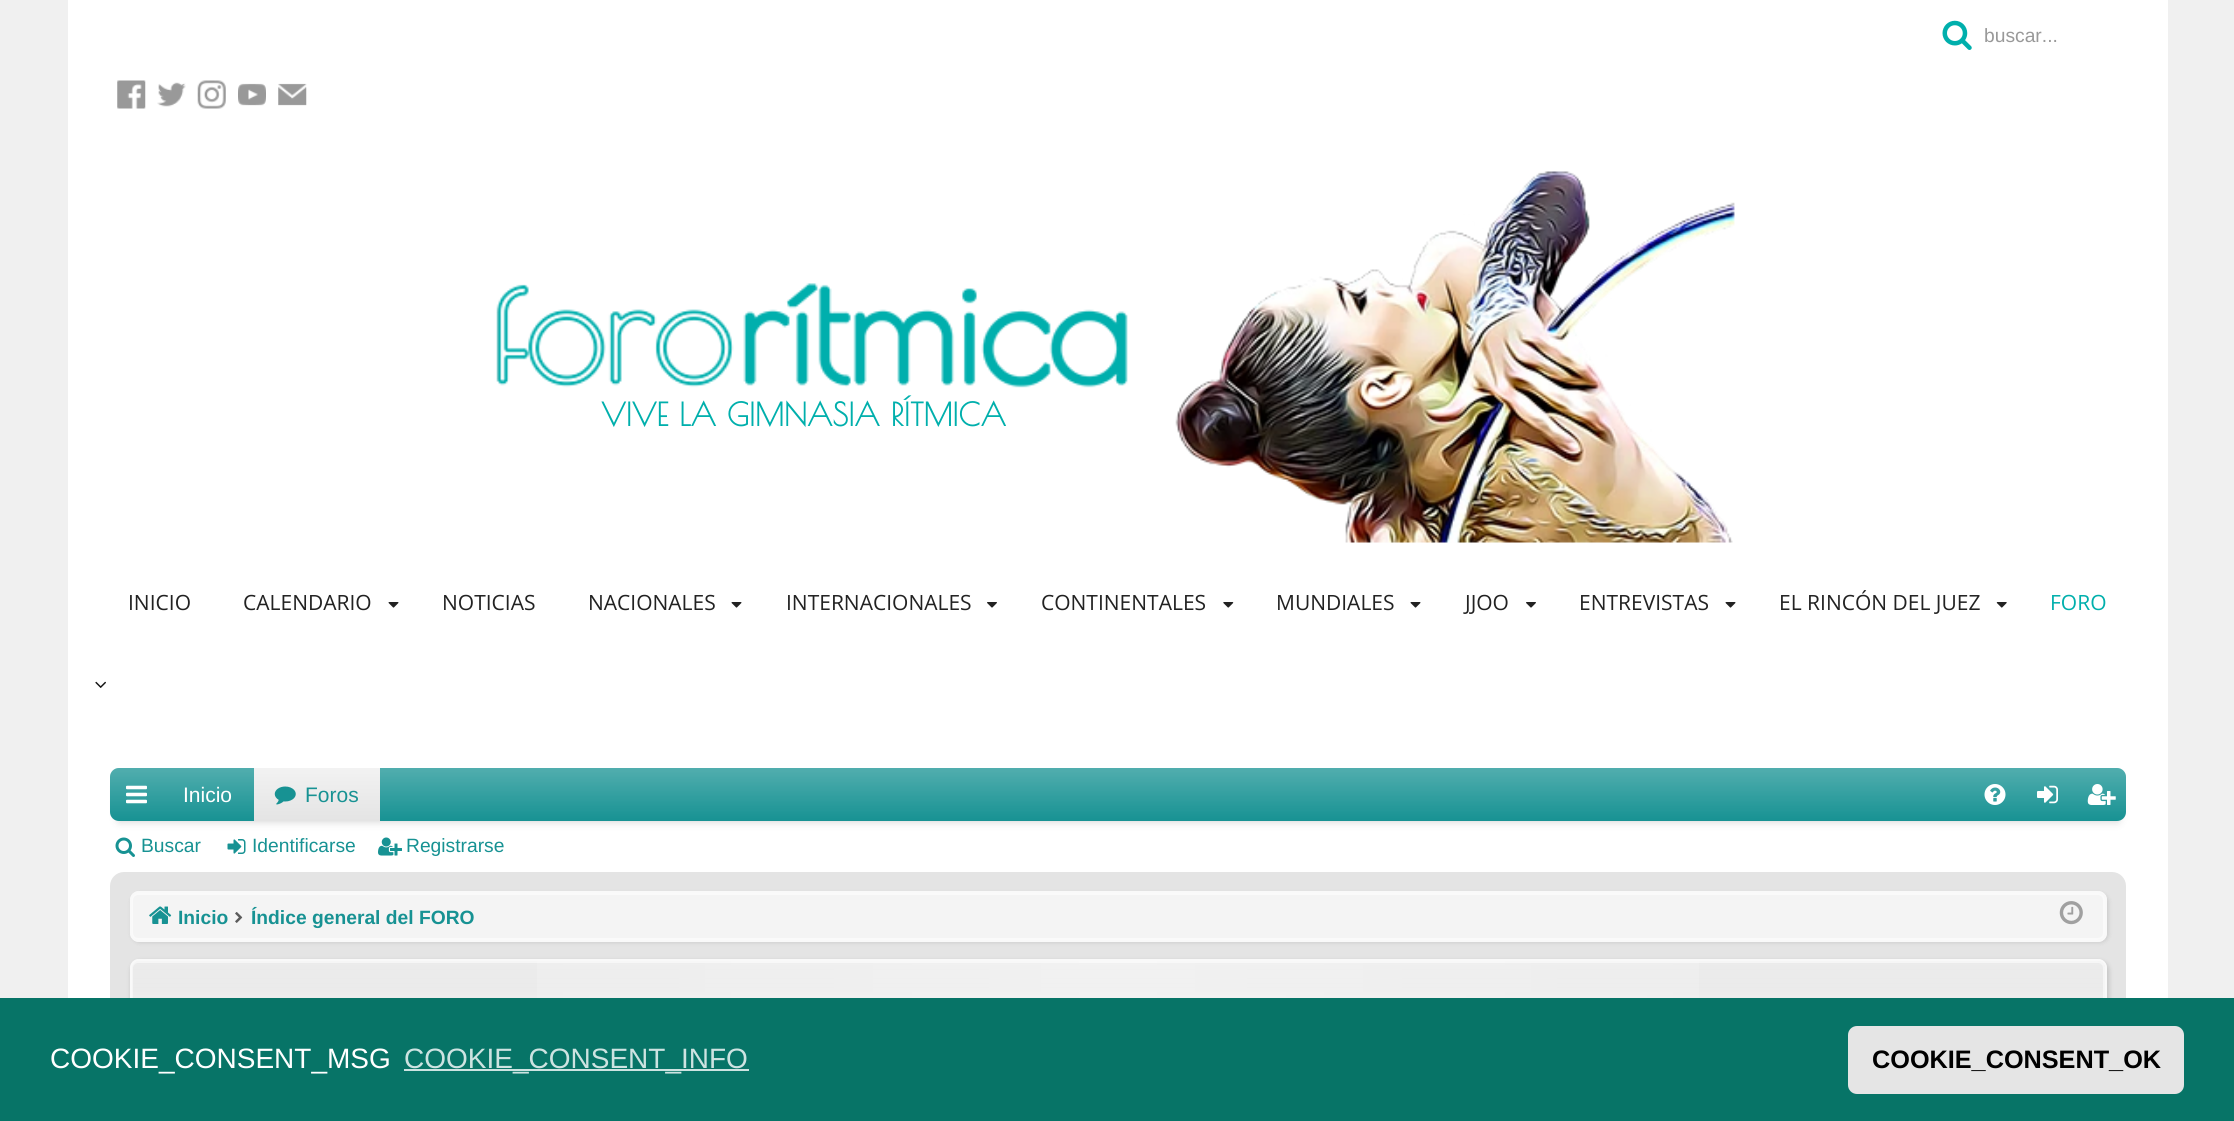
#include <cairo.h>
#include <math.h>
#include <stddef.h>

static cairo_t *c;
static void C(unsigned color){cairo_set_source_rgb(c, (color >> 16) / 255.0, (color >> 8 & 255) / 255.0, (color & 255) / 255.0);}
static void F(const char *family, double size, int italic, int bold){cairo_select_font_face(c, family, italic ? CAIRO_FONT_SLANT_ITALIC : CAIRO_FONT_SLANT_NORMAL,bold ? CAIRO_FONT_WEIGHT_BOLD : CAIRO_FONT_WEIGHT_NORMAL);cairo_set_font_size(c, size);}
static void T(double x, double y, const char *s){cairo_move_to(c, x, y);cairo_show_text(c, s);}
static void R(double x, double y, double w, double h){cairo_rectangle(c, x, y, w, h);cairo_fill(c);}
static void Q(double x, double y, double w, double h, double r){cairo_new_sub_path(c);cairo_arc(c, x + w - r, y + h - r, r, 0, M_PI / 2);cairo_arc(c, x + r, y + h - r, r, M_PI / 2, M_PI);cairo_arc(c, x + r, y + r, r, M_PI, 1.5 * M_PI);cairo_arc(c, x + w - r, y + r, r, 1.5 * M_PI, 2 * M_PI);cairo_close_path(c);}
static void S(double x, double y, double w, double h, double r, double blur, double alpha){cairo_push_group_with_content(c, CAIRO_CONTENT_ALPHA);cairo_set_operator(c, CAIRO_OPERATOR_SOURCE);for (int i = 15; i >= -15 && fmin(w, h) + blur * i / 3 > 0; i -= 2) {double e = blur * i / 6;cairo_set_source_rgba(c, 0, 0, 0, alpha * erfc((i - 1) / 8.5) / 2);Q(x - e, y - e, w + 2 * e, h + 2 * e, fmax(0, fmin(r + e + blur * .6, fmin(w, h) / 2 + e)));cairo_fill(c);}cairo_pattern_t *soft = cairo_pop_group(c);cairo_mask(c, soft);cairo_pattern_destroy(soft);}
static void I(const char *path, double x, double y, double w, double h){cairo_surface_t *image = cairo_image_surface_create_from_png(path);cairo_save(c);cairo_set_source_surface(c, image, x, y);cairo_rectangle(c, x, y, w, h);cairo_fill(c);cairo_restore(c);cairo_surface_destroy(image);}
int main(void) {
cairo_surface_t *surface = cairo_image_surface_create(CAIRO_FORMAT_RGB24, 2234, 1121);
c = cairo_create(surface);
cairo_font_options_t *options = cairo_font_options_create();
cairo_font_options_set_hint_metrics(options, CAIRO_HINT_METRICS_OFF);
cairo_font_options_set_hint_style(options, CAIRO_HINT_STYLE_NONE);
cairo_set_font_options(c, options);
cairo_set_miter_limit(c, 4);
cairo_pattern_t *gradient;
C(0xf0f0f0);
cairo_paint(c);
C(0xffffff);
R(68,0,2100,998);
I("1.png",1942,20,30,30);
cairo_save(c);
cairo_rectangle(c,1985,25,157,21);
cairo_clip(c);
F("Liberation Sans",19.25,0,0);
C(0x999999);
T(1984,42,"buscar...");
cairo_restore(c);
I("2.png",117,80,29,29);
I("3.png",157,82,29,25);
I("4.png",197,80,29,29);
I("5.png",238,83,28,23);
I("6.png",278,83,29,23);
I("7.png",496,171,1239,372);
F("Poiret One",31.5,0,1);
C(0x00afac);
T(601,426,"VIVE LA GIMNASIA RÍTMICA");
F("Open Sans",21,0,0);
C(0x222222);
T(128,610,"INICIO");
T(243,610,"CALENDARIO");
I("8.png",388,602,11,6);
T(442,610,"NOTICIAS");
T(588,610,"NACIONALES");
I("8.png",731,602,11,6);
T(786,610,"INTERNACIONALES");
I("9.png",987,602,10,6);
T(1041,610,"CONTINENTALES");
I("10.png",1223,602,11,6);
T(1276,610,"MUNDIALES");
I("8.png",1410,602,11,6);
T(1465,610,"JJOO");
I("9.png",1526,602,10,6);
T(1579,610,"ENTREVISTAS");
I("8.png",1725,602,11,6);
T(1779,610,"EL RINCÓN DEL JUEZ");
I("11.png",1996,602,11,6);
C(0x00afac);
T(2050,610,"FORO");
I("12.png",95,681,11,7);
C(0x000000);
S(119,786,1999,35,0,4.5,.2);
C(0x179293);
Q(110,768,2016,53,9);
cairo_fill(c);
gradient = cairo_pattern_create_linear(1118,768,1118,821);
cairo_pattern_add_color_stop_rgba(gradient,0,1,1,1,.25);
cairo_pattern_add_color_stop_rgba(gradient,1,1,1,1,0);
cairo_set_source(c,gradient);
cairo_pattern_destroy(gradient);
Q(110,768,2016,53,9);
cairo_fill(c);
I("13.png",126,785,21,19);
F("Liberation Sans",21,0,0);
C(0xffffff);
T(183,802,"Inicio");
gradient = cairo_pattern_create_linear(317,768,317,821);
cairo_pattern_add_color_stop_rgba(gradient,0,0.949,0.949,0.949,1);
cairo_pattern_add_color_stop_rgba(gradient,1,0.894,0.894,0.894,1);
cairo_set_source(c,gradient);
cairo_pattern_destroy(gradient);
R(254,768,126,53);
I("14.png",274,786,22,19);
C(0x179293);
T(305,802,"Foros");
I("15.png",1984,784,22,21);
I("16.png",2037,785,21,19);
I("17.png",2087,784,29,21);
I("18.png",115,837,20,20);
F("Liberation Sans",19.25,0,0);
T(141,852,"Buscar");
I("19.png",227,839,19,15);
T(252,852,"Identificarse");
I("20.png",378,837,24,19);
T(406,852,"Registrarse");
C(0xe4e4e4);
Q(111,873,2014,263,13);
cairo_fill_preserve(c);
cairo_stroke(c);
C(0x000000);
S(131,893,1978,50,9,2,.1);
C(0xf4f4f4);
Q(130,891,1977,51,9);
cairo_fill(c);
Q(132,894,1972,45,6);
C(0xfafafa);
cairo_stroke(c);
Q(131,892,1975,49,8);
C(0xf9f9f9);
cairo_stroke(c);
I("21.png",149,906,23,18);
F("Liberation Sans",19.25,0,1);
C(0x179293);
T(178,924,"Inicio");
I("22.png",235,912,8,11);
T(251,924,"Índice general del FORO");
I("23.png",2059,901,24,24);
C(0x000000);
S(131,961,1978,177,9,2.5,.15);
C(0xf4f4f4);
Q(130,959,1977,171,9);
cairo_fill(c);
cairo_save(c);
Q(130,959,1977,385,9);
cairo_clip(c);
gradient = cairo_pattern_create_linear(1118,961,1118,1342);
cairo_pattern_add_color_stop_rgba(gradient,0,0.8,0.8,0.8,.2);
cairo_pattern_add_color_stop_rgba(gradient,.05,0.8,0.8,0.8,.25);
cairo_pattern_add_color_stop_rgba(gradient,.23,0.8,0.8,0.8,0);
cairo_set_source(c,gradient);
cairo_pattern_destroy(gradient);
R(130,961,1977,37);
cairo_restore(c);
gradient = cairo_pattern_create_linear(131,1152,2105,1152);
cairo_pattern_add_color_stop_rgba(gradient,0,1,1,1,0);
cairo_pattern_add_color_stop_rgba(gradient,.5,1,1,1,.3);
cairo_pattern_add_color_stop_rgba(gradient,1,1,1,1,0);
cairo_set_source(c,gradient);
cairo_pattern_destroy(gradient);
R(537,961,1162,37);
Q(132,962,1972,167,6);
cairo_set_source_rgba(c,1,1,1,0.5);
cairo_stroke(c);
Q(131,960,1975,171,8);
C(0xf9f9f9);
cairo_stroke(c);
C(0x077467);
R(0,998,2234,123);
F("Liberation Sans",28,0,0);
C(0xffffff);
T(50,1068,"COOKIE_CONSENT_MSG");
C(0xcde3e1);
R(404,1069,345,2);
T(404,1068,"COOKIE_CONSENT_INFO");
C(0xe5e5e5);
Q(1848,1026,336,68,9);
cairo_fill(c);
F("Liberation Sans",25.25,0,1);
C(0x000000);
T(1872,1068,"COOKIE_CONSENT_OK");
cairo_surface_write_to_png(surface, "o.png");
cairo_font_options_destroy(options);
cairo_destroy(c);
cairo_surface_destroy(surface);
return 0;
}
